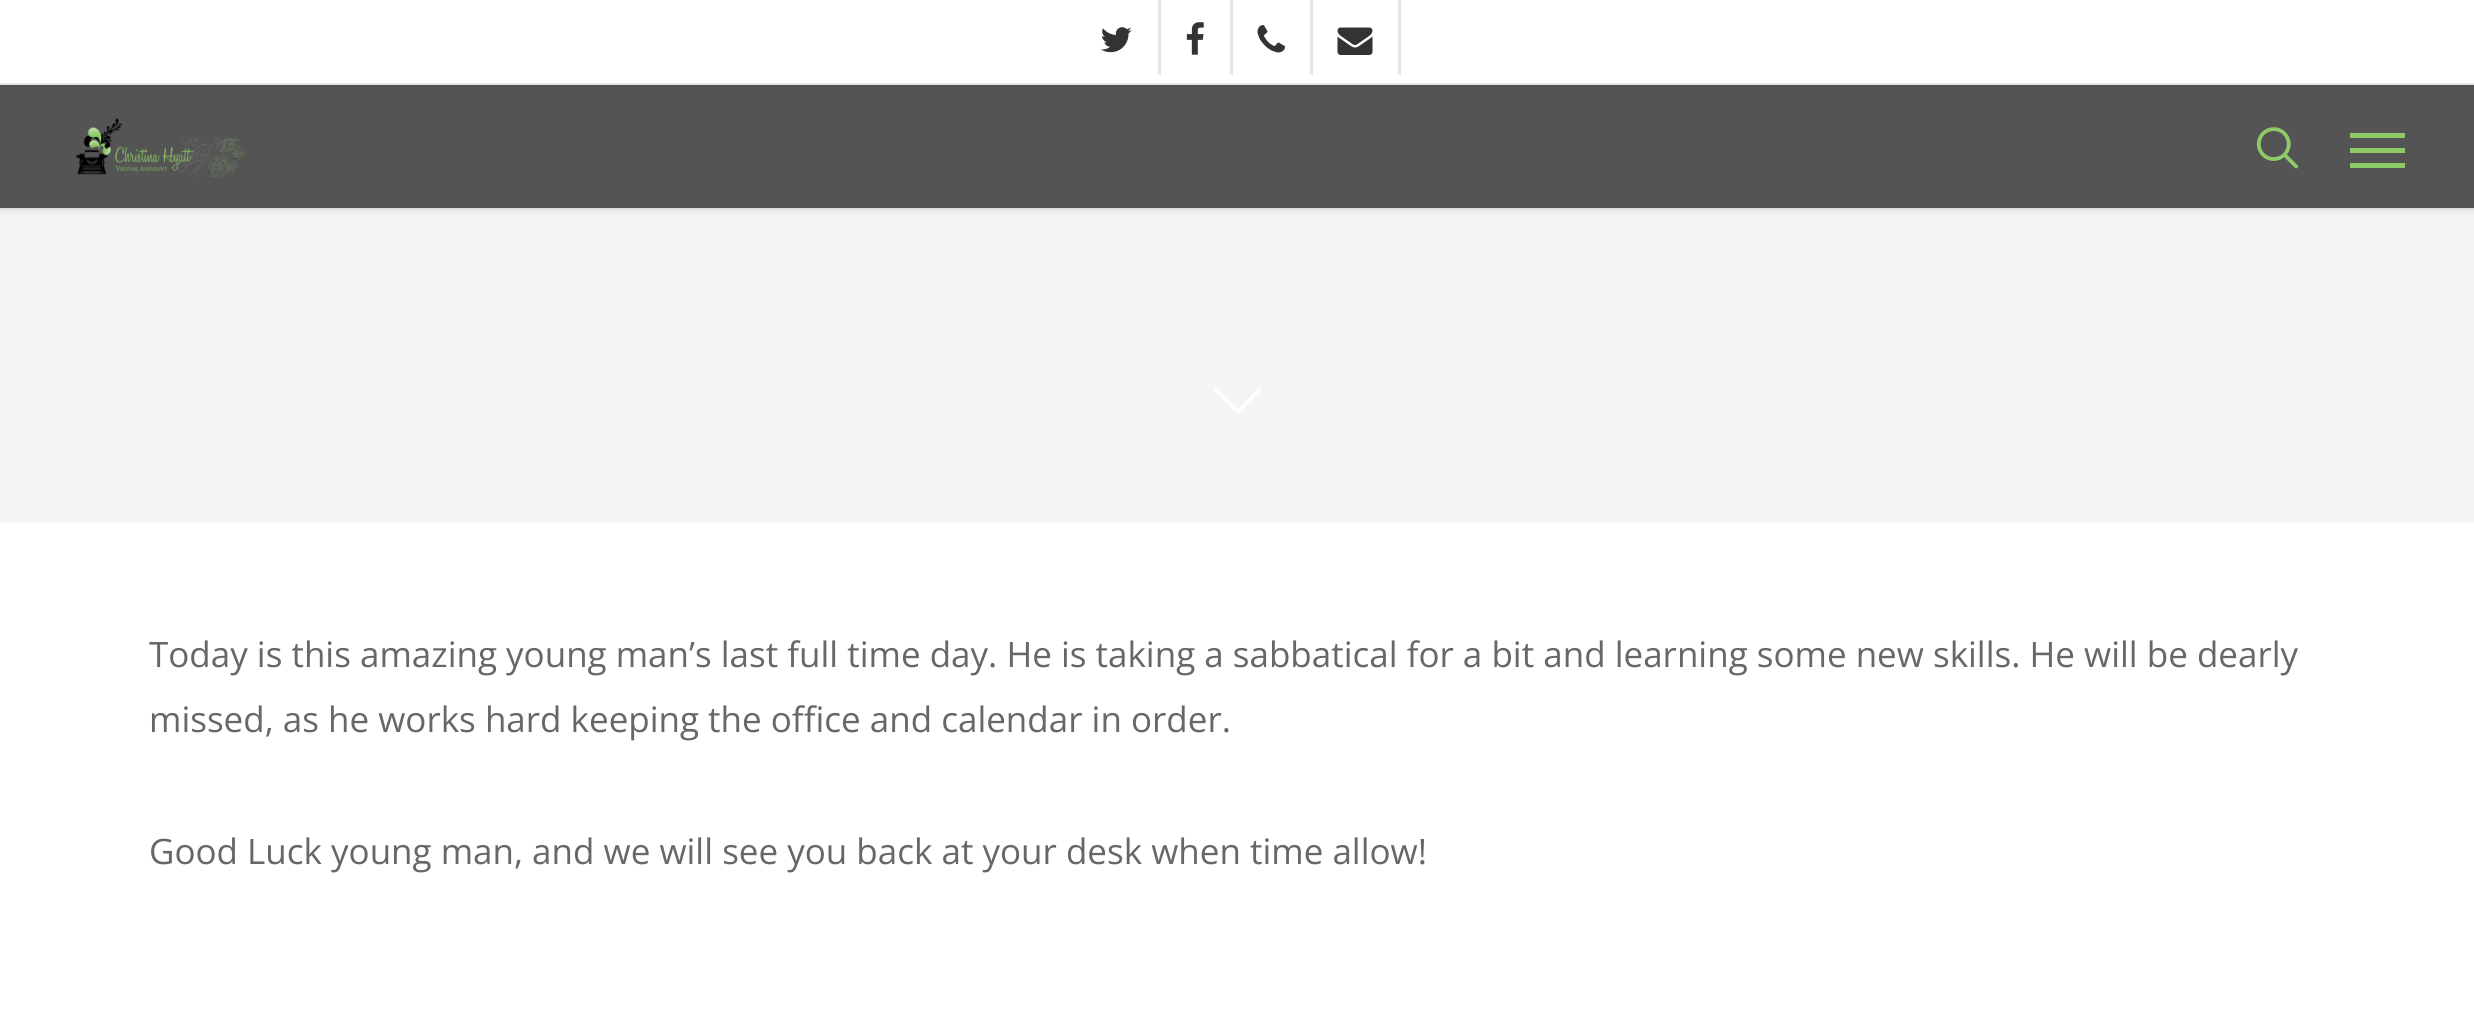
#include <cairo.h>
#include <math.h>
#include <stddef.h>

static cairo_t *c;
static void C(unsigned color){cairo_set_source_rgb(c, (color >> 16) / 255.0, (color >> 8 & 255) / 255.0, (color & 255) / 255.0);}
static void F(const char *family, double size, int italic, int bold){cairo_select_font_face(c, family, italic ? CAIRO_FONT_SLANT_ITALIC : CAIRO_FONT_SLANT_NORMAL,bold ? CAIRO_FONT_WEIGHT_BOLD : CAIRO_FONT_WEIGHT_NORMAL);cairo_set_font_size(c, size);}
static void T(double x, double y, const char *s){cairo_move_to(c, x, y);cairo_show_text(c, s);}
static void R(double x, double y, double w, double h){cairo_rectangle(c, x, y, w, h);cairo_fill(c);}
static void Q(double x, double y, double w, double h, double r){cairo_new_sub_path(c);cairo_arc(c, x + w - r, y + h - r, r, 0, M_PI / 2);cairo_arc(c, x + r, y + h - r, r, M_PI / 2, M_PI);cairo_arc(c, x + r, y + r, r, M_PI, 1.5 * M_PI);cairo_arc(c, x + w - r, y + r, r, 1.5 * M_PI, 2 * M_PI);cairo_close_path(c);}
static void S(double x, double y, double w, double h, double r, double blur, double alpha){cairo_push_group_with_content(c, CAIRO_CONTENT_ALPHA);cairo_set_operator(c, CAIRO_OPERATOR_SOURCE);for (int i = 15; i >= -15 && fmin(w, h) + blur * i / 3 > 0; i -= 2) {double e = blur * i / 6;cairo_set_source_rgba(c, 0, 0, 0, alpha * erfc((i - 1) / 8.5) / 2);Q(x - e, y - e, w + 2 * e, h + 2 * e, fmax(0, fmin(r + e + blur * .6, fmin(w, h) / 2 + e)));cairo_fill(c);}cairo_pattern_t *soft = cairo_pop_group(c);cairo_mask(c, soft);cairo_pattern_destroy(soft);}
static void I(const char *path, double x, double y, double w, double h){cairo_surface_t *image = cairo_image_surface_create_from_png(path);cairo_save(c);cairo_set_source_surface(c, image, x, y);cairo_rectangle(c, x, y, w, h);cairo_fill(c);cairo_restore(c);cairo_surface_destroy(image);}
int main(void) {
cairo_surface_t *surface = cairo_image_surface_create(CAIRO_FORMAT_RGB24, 2474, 1009);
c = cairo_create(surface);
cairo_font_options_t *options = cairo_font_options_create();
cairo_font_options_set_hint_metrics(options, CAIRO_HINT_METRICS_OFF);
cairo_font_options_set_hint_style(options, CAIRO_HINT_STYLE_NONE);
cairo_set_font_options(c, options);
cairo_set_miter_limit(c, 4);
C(0xffffff);
cairo_paint(c);
C(0xf5f5f5);
R(0,208,2474,315);
C(0x000000);
S(0,0,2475,208,0,4,.22);
C(0x545454);
R(0,86,2474,122);
C(0x4c4c4c);
R(0,85,2474,1);
C(0xffffff);
R(0,0,2474,83);
C(0xe6e6e6);
R(0,83,2474,2);
I("1.png",1101,27,31,26);
R(1158,0,3,75);
I("2.png",1186,22,18,33);
R(1230,0,3,75);
I("3.png",1257,25,28,28);
R(1398,0,3,75);
R(1310,0,3,75);
I("4.png",1337,27,36,28);
I("5.png",76,118,170,60);
I("6.png",2256,127,43,42);
C(0x8eca68);
R(2350,133,55,5);
R(2350,163,55,5);
R(2350,148,55,5);
C(0xffffff);
cairo_new_path(c);
cairo_move_to(c,1260,387);
cairo_line_to(c,1262,389);
cairo_line_to(c,1238,414);
cairo_line_to(c,1213,389);
cairo_line_to(c,1215,387);
cairo_line_to(c,1238,409);
cairo_close_path(c);
cairo_fill(c);
F("Open Sans",35,0,0);
C(0x676767);
T(149,667,"Today is this amazing young man’s last full time day. He is taking a sabbatical for a bit and learning some new skills. He will be dearly");
T(149,732,"missed, as he works hard keeping the office and calendar in order.");
T(149,864,"Good Luck young man, and we will see you back at your desk when time allow!");
cairo_surface_write_to_png(surface, "o.png");
cairo_font_options_destroy(options);
cairo_destroy(c);
cairo_surface_destroy(surface);
return 0;
}
